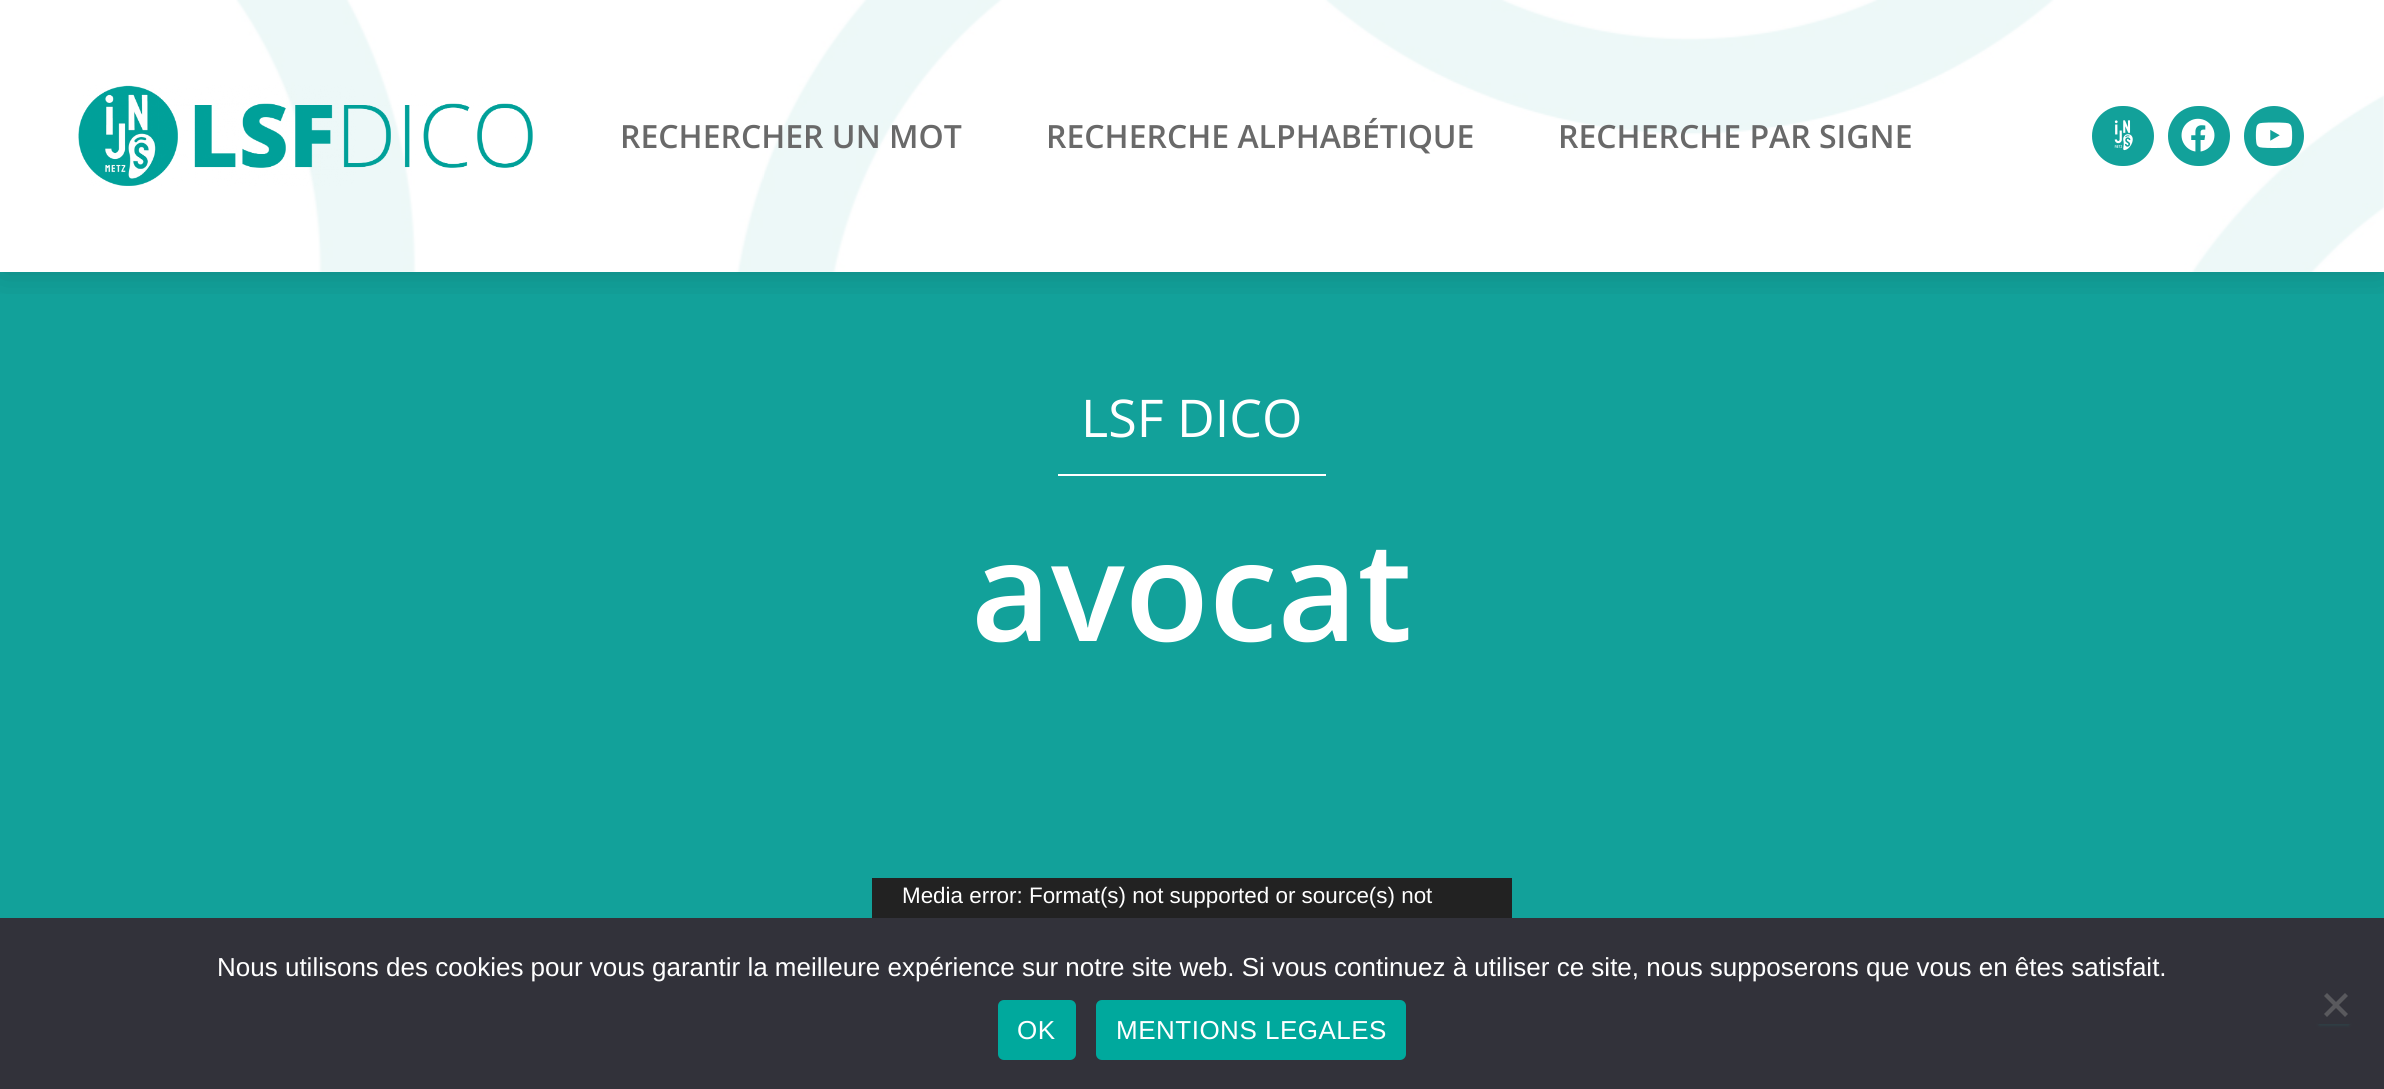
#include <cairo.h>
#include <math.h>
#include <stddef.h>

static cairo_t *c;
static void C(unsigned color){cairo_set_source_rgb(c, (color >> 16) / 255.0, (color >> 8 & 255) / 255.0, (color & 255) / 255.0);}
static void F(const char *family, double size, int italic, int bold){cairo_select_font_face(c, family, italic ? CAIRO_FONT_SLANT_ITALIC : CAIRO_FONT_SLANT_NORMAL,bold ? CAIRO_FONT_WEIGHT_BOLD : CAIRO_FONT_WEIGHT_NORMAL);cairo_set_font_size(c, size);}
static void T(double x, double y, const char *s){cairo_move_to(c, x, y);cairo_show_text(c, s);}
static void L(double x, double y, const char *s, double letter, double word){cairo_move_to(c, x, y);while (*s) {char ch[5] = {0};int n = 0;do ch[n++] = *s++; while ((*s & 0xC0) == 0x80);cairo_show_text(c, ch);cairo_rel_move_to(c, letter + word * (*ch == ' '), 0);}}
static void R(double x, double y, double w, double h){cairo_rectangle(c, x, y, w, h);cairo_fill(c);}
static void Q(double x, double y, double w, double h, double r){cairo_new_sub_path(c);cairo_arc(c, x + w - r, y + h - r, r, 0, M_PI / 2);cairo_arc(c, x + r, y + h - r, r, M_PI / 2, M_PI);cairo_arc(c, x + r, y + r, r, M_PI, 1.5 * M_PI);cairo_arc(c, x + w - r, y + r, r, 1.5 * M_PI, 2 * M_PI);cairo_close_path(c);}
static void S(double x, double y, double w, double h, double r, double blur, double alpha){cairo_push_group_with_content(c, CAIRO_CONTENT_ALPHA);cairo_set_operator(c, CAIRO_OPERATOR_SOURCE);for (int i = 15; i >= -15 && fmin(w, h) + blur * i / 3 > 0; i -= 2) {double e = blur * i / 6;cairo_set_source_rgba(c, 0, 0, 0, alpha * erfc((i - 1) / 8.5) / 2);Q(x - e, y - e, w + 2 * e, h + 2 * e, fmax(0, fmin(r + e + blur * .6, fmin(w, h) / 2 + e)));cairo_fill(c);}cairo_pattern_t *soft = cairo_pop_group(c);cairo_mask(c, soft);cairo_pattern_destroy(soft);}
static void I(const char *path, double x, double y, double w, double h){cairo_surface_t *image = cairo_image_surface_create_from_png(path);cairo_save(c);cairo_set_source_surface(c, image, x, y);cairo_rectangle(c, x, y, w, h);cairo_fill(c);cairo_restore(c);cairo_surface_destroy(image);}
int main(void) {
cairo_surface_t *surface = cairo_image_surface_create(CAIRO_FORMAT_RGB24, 2384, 1089);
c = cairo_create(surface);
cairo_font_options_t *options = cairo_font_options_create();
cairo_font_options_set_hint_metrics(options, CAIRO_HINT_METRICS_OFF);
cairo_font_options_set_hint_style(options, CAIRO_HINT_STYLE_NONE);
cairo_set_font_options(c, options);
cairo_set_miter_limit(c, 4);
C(0xffffff);
cairo_paint(c);
C(0x12a19a);
R(0,272,2384,646);
cairo_save(c);
cairo_rectangle(c,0,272,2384,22);
cairo_clip(c);
C(0x000000);
S(0,0,2384,272,0,19,.16);
cairo_restore(c);
I("1.png",236,0,2148,272);
I("2.png",78,85,455,101);
F("Open Sans SemiBold",32,0,0);
C(0x696969);
T(620,148,"RECHERCHER UN MOT");
T(1046,148,"RECHERCHE ALPHABÉTIQUE");
T(1558,148,"RECHERCHE PAR SIGNE");
C(0x12a19a);
Q(2092,106,62,60,30);
cairo_fill(c);
I("3.png",2114,120,19,31);
Q(2168,106,62,60,30);
cairo_fill(c);
I("4.png",2181,118,34,34);
cairo_arc(c,2274,136,30,0,2 * M_PI);
cairo_fill(c);
I("5.png",2255,122,38,26);
F("Open Sans",52,0,0);
C(0xffffff);
T(1081,437,"LSF DICO");
R(1058,474,268,2);
F("Open Sans SemiBold",138,0,0);
T(971,641,"avocat");
C(0x222222);
R(872,878,640,40);
F("Liberation Sans",22.4,0,0);
C(0xffffff);
T(902,903,"Media error: Format(s) not supported or source(s) not");
C(0x32323a);
R(0,918,2384,171);
F("Liberation Sans",26,0,0);
C(0xffffff);
T(217,976,"Nous utilisons des cookies pour vous garantir la meilleure expérience sur notre site web. Si vous continuez à utiliser ce site, nous supposerons que vous en êtes satisfait.");
C(0x00a99d);
Q(998,1000,78,60,6);
cairo_fill(c);
C(0xffffff);
L(1017,1039,"OK",.5,0);
C(0x00a99d);
Q(1096,1000,310,60,6);
cairo_fill(c);
C(0xffffff);
L(1116,1039,"MENTIONS LEGALES",.5,0);
cairo_save(c);
cairo_set_fill_rule(c,CAIRO_FILL_RULE_EVEN_ODD);
cairo_new_path(c);
cairo_move_to(c,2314,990);
cairo_line_to(c,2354,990);
cairo_line_to(c,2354,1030);
cairo_line_to(c,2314,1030);
cairo_close_path(c);
cairo_move_to(c,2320,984);
cairo_line_to(c,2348,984);
cairo_curve_to(c,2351.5,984,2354,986.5,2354,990);
cairo_line_to(c,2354,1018);
cairo_curve_to(c,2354,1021.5,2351.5,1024,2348,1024);
cairo_line_to(c,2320,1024);
cairo_curve_to(c,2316.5,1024,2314,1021.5,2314,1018);
cairo_line_to(c,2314,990);
cairo_curve_to(c,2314,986.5,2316.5,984,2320,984);
cairo_close_path(c);
cairo_clip(c);
C(0x226a6a);
S(2318,994,32,32,2,1,.2);
cairo_restore(c);
C(0x59595d);
cairo_new_path(c);
cairo_move_to(c,2345,993);
cairo_line_to(c,2348,996);
cairo_line_to(c,2327,1017);
cairo_line_to(c,2324,1014);
cairo_close_path(c);
cairo_fill(c);
cairo_new_path(c);
cairo_move_to(c,2324,996);
cairo_line_to(c,2327,993);
cairo_line_to(c,2348,1014);
cairo_line_to(c,2345,1017);
cairo_close_path(c);
cairo_fill(c);
cairo_surface_write_to_png(surface, "o.png");
cairo_font_options_destroy(options);
cairo_destroy(c);
cairo_surface_destroy(surface);
return 0;
}
